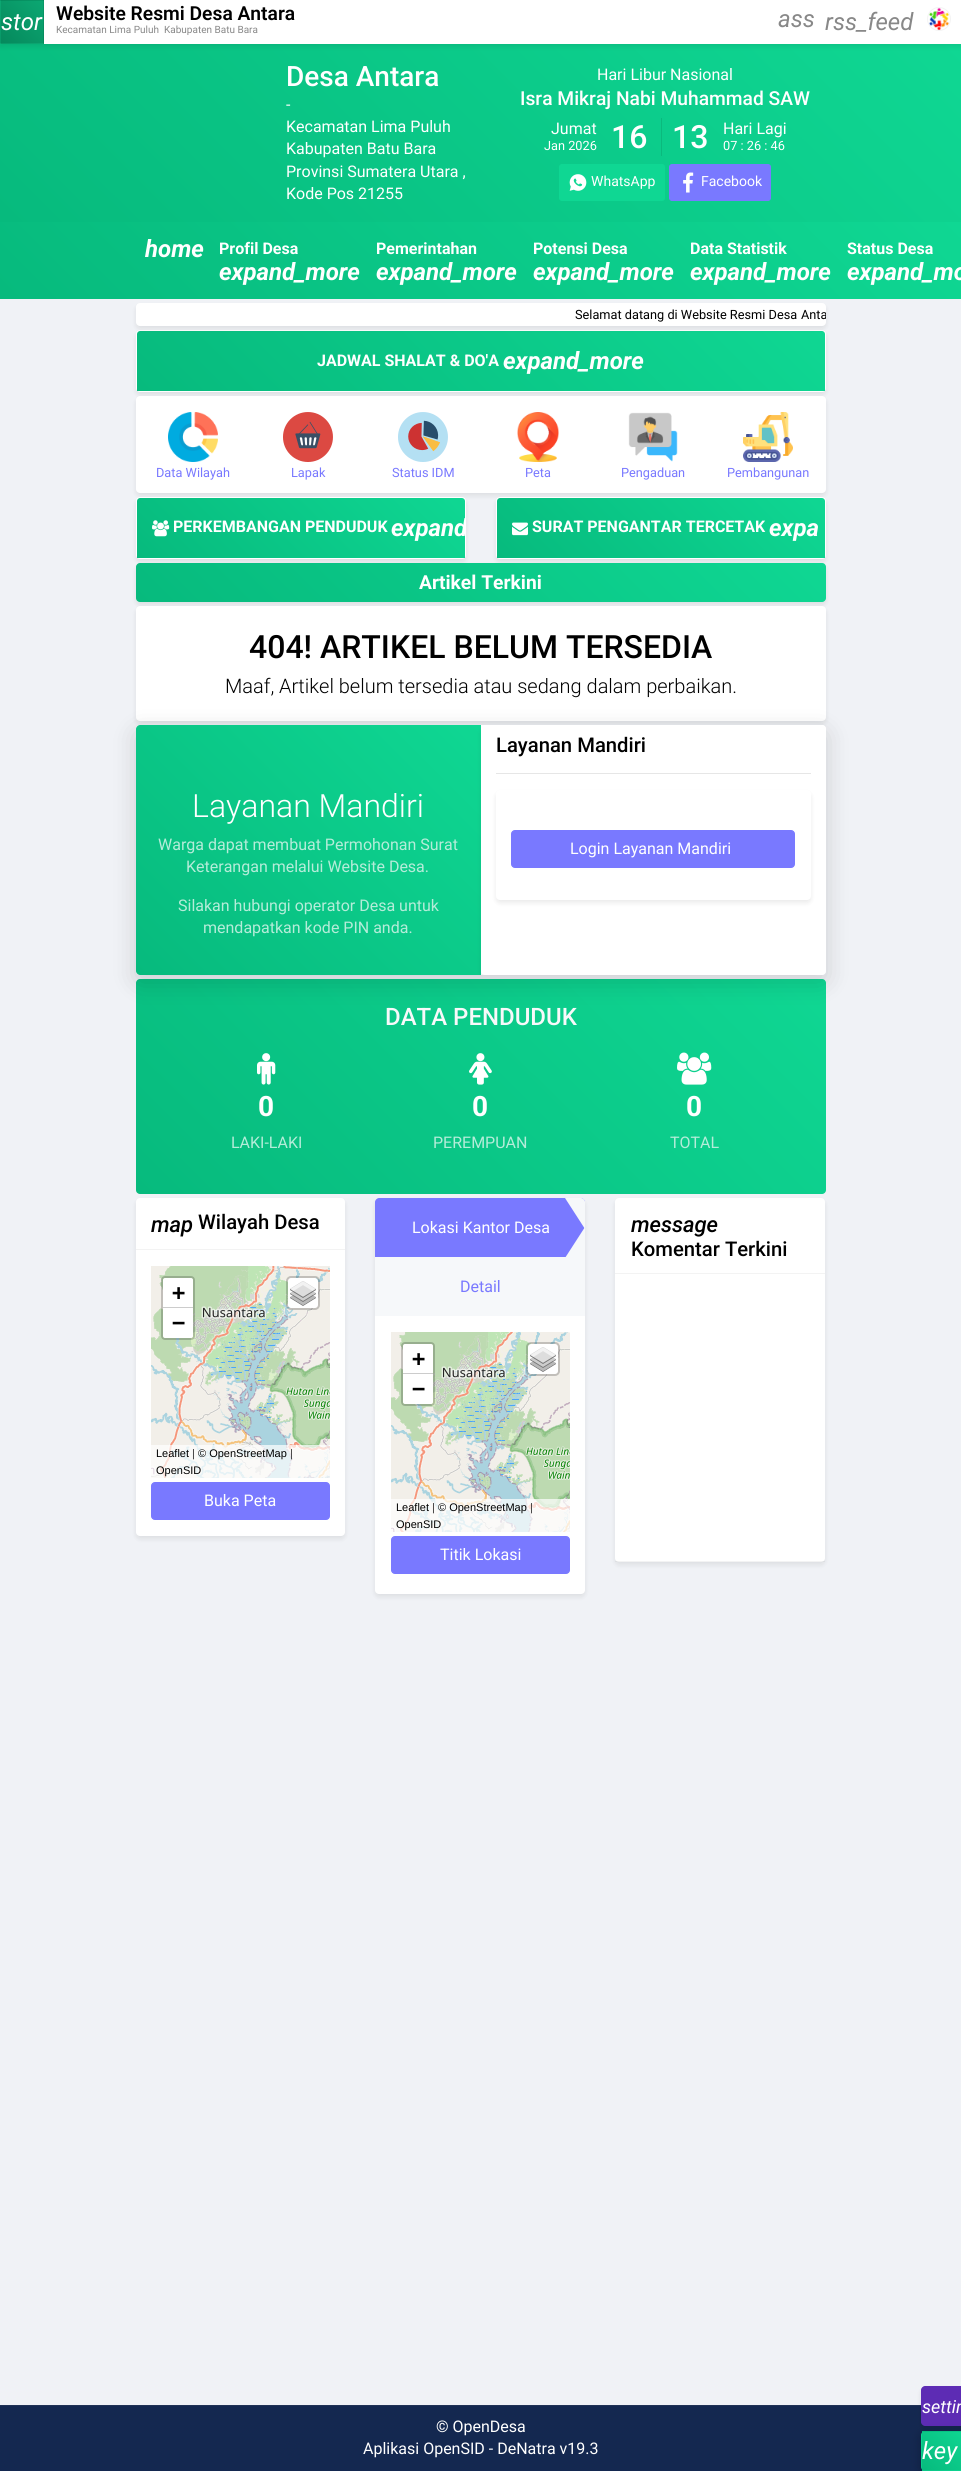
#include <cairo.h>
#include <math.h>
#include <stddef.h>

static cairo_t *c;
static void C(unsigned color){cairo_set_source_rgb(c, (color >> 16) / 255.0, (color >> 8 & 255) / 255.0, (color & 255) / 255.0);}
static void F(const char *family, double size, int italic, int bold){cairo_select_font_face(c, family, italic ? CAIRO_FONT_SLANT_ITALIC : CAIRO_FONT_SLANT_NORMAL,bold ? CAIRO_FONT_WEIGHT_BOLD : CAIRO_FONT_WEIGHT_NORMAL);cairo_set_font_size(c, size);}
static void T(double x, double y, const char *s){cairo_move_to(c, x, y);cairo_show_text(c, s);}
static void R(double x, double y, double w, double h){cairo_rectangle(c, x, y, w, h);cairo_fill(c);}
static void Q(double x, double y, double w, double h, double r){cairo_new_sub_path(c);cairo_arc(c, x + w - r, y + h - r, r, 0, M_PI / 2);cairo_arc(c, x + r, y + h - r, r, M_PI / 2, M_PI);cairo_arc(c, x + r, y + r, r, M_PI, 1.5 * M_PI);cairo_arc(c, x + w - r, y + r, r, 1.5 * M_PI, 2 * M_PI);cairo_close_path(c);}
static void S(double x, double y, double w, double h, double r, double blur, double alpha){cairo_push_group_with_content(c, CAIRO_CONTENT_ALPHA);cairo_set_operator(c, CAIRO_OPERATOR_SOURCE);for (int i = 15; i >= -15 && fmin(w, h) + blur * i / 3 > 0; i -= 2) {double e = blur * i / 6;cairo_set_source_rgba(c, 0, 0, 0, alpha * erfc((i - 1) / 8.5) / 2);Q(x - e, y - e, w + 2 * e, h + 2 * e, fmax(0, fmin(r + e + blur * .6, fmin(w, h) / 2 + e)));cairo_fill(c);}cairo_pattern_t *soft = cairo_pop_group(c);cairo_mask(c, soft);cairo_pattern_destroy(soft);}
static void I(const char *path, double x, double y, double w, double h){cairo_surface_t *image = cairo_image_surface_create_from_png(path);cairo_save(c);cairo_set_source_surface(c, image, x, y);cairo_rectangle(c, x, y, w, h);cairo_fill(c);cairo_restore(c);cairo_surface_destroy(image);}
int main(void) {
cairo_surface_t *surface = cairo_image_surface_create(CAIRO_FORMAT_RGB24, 961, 2471);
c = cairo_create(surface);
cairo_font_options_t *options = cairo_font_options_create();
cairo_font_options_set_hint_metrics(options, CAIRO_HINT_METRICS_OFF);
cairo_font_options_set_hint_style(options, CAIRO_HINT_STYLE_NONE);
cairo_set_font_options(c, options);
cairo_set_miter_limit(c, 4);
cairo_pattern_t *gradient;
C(0xf0f2f6);
cairo_paint(c);
gradient = cairo_pattern_create_linear(196,418,765,-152);
cairo_pattern_add_color_stop_rgba(gradient,0,0.027,0.729,0.49,1);
cairo_pattern_add_color_stop_rgba(gradient,1,0.059,0.843,0.576,1);
cairo_set_source(c,gradient);
cairo_pattern_destroy(gradient);
R(0,44,961,178);
C(0x000000);
S(0,3,961,44,0,2.5,.08);
C(0xffffff);
R(44,0,917,44);
gradient = cairo_pattern_create_linear(-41,1,1,-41);
cairo_pattern_add_color_stop_rgba(gradient,0,0.02,0.537,0.361,1);
cairo_pattern_add_color_stop_rgba(gradient,1,0.047,0.655,0.447,1);
cairo_set_source(c,gradient);
cairo_pattern_destroy(gradient);
R(0,0,1,1);
gradient = cairo_pattern_create_linear(1,1,43,-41);
cairo_pattern_add_color_stop_rgba(gradient,0,0.02,0.537,0.361,1);
cairo_pattern_add_color_stop_rgba(gradient,1,0.047,0.655,0.447,1);
cairo_set_source(c,gradient);
cairo_pattern_destroy(gradient);
R(1,0,42,1);
gradient = cairo_pattern_create_linear(43,1,85,-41);
cairo_pattern_add_color_stop_rgba(gradient,0,0.02,0.537,0.361,1);
cairo_pattern_add_color_stop_rgba(gradient,1,0.047,0.655,0.447,1);
cairo_set_source(c,gradient);
cairo_pattern_destroy(gradient);
R(43,0,1,1);
gradient = cairo_pattern_create_linear(-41,43,1,1);
cairo_pattern_add_color_stop_rgba(gradient,0,0.02,0.537,0.361,1);
cairo_pattern_add_color_stop_rgba(gradient,1,0.047,0.655,0.447,1);
cairo_set_source(c,gradient);
cairo_pattern_destroy(gradient);
R(0,1,1,42);
gradient = cairo_pattern_create_linear(1,43,43,1);
cairo_pattern_add_color_stop_rgba(gradient,0,0.02,0.537,0.361,1);
cairo_pattern_add_color_stop_rgba(gradient,1,0.047,0.655,0.447,1);
cairo_set_source(c,gradient);
cairo_pattern_destroy(gradient);
R(1,1,42,42);
gradient = cairo_pattern_create_linear(43,43,85,1);
cairo_pattern_add_color_stop_rgba(gradient,0,0.02,0.537,0.361,1);
cairo_pattern_add_color_stop_rgba(gradient,1,0.047,0.655,0.447,1);
cairo_set_source(c,gradient);
cairo_pattern_destroy(gradient);
R(43,1,1,42);
gradient = cairo_pattern_create_linear(-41,85,1,43);
cairo_pattern_add_color_stop_rgba(gradient,0,0.02,0.537,0.361,1);
cairo_pattern_add_color_stop_rgba(gradient,1,0.047,0.655,0.447,1);
cairo_set_source(c,gradient);
cairo_pattern_destroy(gradient);
R(0,43,1,1);
gradient = cairo_pattern_create_linear(1,85,43,43);
cairo_pattern_add_color_stop_rgba(gradient,0,0.02,0.537,0.361,1);
cairo_pattern_add_color_stop_rgba(gradient,1,0.047,0.655,0.447,1);
cairo_set_source(c,gradient);
cairo_pattern_destroy(gradient);
R(1,43,42,1);
gradient = cairo_pattern_create_linear(43,85,85,43);
cairo_pattern_add_color_stop_rgba(gradient,0,0.02,0.537,0.361,1);
cairo_pattern_add_color_stop_rgba(gradient,1,0.047,0.655,0.447,1);
cairo_set_source(c,gradient);
cairo_pattern_destroy(gradient);
R(43,43,1,1);
F("Roboto",24,1,0);
C(0xffffff);
T(1,30,"stor");
F("Roboto SemiBold",19.25,0,0);
C(0x000000);
T(56,20,"Website Resmi Desa Antara");
F("Roboto",10,0,0);
C(0x888888);
T(56,33,"Kecamatan Lima Puluh");
T(164,33,"Kabupaten Batu Bara");
F("Roboto",24,1,0);
T(778,27,"ass");
T(825,30,"rss_feed");
cairo_new_path(c);
cairo_arc(c,939,19,11.5,0,2 * M_PI);
C(0xf3f3f3);
cairo_set_line_width(c,1);
cairo_stroke(c);
I("1.png",929,8,20,22);
F("Roboto Medium",28,0,0);
C(0xffffff);
T(286,86,"Desa Antara");
F("Roboto",16,0,0);
T(286,110,"-");
T(286,132,"Kecamatan Lima Puluh");
T(286,154,"Kabupaten Batu Bara");
T(286,177,"Provinsi Sumatera Utara ,");
T(286,199,"Kode Pos 21255");
T(597,80,"Hari Libur Nasional");
F("Roboto Medium",19.25,0,0);
T(520,105,"Isra Mikraj Nabi Muhammad SAW");
F("Roboto",16,0,0);
T(551,134,"Jumat");
F("Roboto",12.75,0,0);
T(544,150,"Jan 2026");
F("Roboto Medium",32,0,0);
T(611,148,"16");
C(0x0bb97d);
R(661,118,1,38);
C(0xffffff);
T(672,148,"13");
F("Roboto",16,0,0);
T(723,134,"Hari Lagi");
F("Roboto",12.75,0,0);
T(723,150,"07 : 26 : 46");
C(0x0fd793);
Q(559.5,164.5,105,36,2.5);
cairo_fill_preserve(c);
cairo_stroke(c);
I("2.png",569,174,18,17);
F("Roboto",14,0,0);
C(0xffffff);
T(591,186,"WhatsApp");
C(0x7979ff);
Q(669.5,164.5,101,36,2.5);
cairo_fill_preserve(c);
cairo_stroke(c);
I("3.png",683,172,11,21);
C(0xffffff);
T(701,186,"Facebook");
gradient = cairo_pattern_create_linear(221,520,740,1);
cairo_pattern_add_color_stop_rgba(gradient,0,0.027,0.729,0.49,1);
cairo_pattern_add_color_stop_rgba(gradient,1,0.059,0.843,0.576,1);
cairo_set_source(c,gradient);
cairo_pattern_destroy(gradient);
R(0,222,961,77);
F("Roboto",24,1,1);
C(0xffffff);
T(145,257,"home");
F("Roboto",16,0,1);
T(219,254,"Profil Desa");
F("Roboto",24,1,1);
T(219,280,"expand_more");
F("Roboto",16,0,1);
T(376,254,"Pemerintahan");
F("Roboto",24,1,1);
T(376,280,"expand_more");
F("Roboto",16,0,1);
T(533,254,"Potensi Desa");
F("Roboto",24,1,1);
T(533,280,"expand_more");
F("Roboto",16,0,1);
T(690,254,"Data Statistik");
F("Roboto",24,1,1);
T(690,280,"expand_more");
F("Roboto",16,0,1);
T(847,254,"Status Desa");
F("Roboto",24,1,1);
T(847,280,"expand_mo");
C(0x000000);
S(136,333,690,62,4,2.5,.08);
C(0xffffff);
Q(136,330,690,62,4);
cairo_fill(c);
gradient = cairo_pattern_create_linear(294,548,668,174);
cairo_pattern_add_color_stop_rgba(gradient,0,0.027,0.729,0.49,1);
cairo_pattern_add_color_stop_rgba(gradient,1,0.059,0.843,0.576,1);
cairo_set_source(c,gradient);
cairo_pattern_destroy(gradient);
cairo_new_path(c);
cairo_move_to(c,140,331);
cairo_line_to(c,822,331);
cairo_curve_to(c,823.5,331,825,332.5,825,334);
cairo_line_to(c,825,391);
cairo_line_to(c,137,391);
cairo_line_to(c,137,334);
cairo_curve_to(c,137,332.5,138.5,331,140,331);
cairo_close_path(c);
cairo_fill(c);
C(0x000000);
S(136,306,690,23,4,2.5,.08);
C(0xffffff);
Q(136,303,690,23,4);
cairo_fill(c);
F("Roboto",12.75,0,0);
C(0x000000);
T(575,319,"Selamat datang di Website Resmi Desa");
cairo_save(c);
cairo_rectangle(c,136,303,690,23);
cairo_clip(c);
T(801,319,"Anta");
cairo_restore(c);
F("Roboto",16,0,1);
C(0xffffff);
T(317,366,"JADWAL SHALAT & DO'A");
F("Roboto",24,1,1);
T(503,369,"expand_more");
C(0x000000);
S(136,399,690,97,4,2.5,.08);
C(0xffffff);
Q(136,396,690,97,4);
cairo_fill(c);
I("4.png",168,412,50,50);
F("Roboto",12.75,0,0);
C(0x7979ff);
T(156,477,"Data Wilayah");
I("5.png",283,412,50,50);
T(291,477,"Lapak");
I("6.png",398,412,50,50);
T(392,477,"Status IDM");
I("7.png",517,412,42,50);
T(525,477,"Peta");
I("8.png",628,412,50,50);
T(621,477,"Pengaduan");
I("9.png",743,412,50,50);
T(727,477,"Pembangunan");
C(0x000000);
S(136,500,330,62,4,2.5,.08);
C(0xffffff);
Q(136,497,330,62,4);
cairo_fill(c);
gradient = cairo_pattern_create_linear(204,625,398,431);
cairo_pattern_add_color_stop_rgba(gradient,0,0.027,0.729,0.49,1);
cairo_pattern_add_color_stop_rgba(gradient,1,0.059,0.843,0.576,1);
cairo_set_source(c,gradient);
cairo_pattern_destroy(gradient);
cairo_new_path(c);
cairo_move_to(c,140,498);
cairo_line_to(c,462,498);
cairo_curve_to(c,463.5,498,465,499.5,465,501);
cairo_line_to(c,465,558);
cairo_line_to(c,137,558);
cairo_line_to(c,137,501);
cairo_curve_to(c,137,499.5,138.5,498,140,498);
cairo_close_path(c);
cairo_fill(c);
I("10.png",152,520,18,17);
F("Roboto",16,0,1);
C(0xffffff);
T(173,532,"PERKEMBANGAN PENDUDUK");
cairo_save(c);
Q(136,497,330,62,4);
cairo_clip(c);
F("Roboto",24,1,1);
T(391,536,"expand");
cairo_restore(c);
C(0x000000);
S(496,500,330,62,4,2.5,.08);
C(0xffffff);
Q(496,497,330,62,4);
cairo_fill(c);
gradient = cairo_pattern_create_linear(564,625,758,431);
cairo_pattern_add_color_stop_rgba(gradient,0,0.027,0.729,0.49,1);
cairo_pattern_add_color_stop_rgba(gradient,1,0.059,0.843,0.576,1);
cairo_set_source(c,gradient);
cairo_pattern_destroy(gradient);
cairo_new_path(c);
cairo_move_to(c,500,498);
cairo_line_to(c,822,498);
cairo_curve_to(c,823.5,498,825,499.5,825,501);
cairo_line_to(c,825,558);
cairo_line_to(c,497,558);
cairo_line_to(c,497,501);
cairo_curve_to(c,497,499.5,498.5,498,500,498);
cairo_close_path(c);
cairo_fill(c);
I("11.png",512,522,16,14);
C(0xffffff);
T(532,532,"SURAT PENGANTAR TERCETAK");
F("Roboto",24,1,1);
T(769,536,"expa");
C(0x000000);
S(136,566,690,39,4,2.5,.08);
gradient = cairo_pattern_create_linear(299,765,663,400);
cairo_pattern_add_color_stop_rgba(gradient,0,0.027,0.729,0.49,1);
cairo_pattern_add_color_stop_rgba(gradient,1,0.059,0.843,0.576,1);
cairo_set_source(c,gradient);
cairo_pattern_destroy(gradient);
Q(136,563,690,39,4);
cairo_fill(c);
F("Roboto",19.25,0,1);
C(0xffffff);
T(419,589,"Artikel Terkini");
C(0x000000);
S(136,609,690,115,4,2.5,.08);
C(0xffffff);
Q(136,606,690,115,4);
cairo_fill(c);
F("Roboto Medium",32,0,0);
C(0x000000);
T(249,658,"404! ARTIKEL BELUM TERSEDIA");
F("Roboto Light",20,0,0);
T(225,693,"Maaf, Artikel belum tersedia atau sedang dalam perbaikan.");
gradient = cairo_pattern_create_linear(255,1313,707,860);
cairo_pattern_add_color_stop_rgba(gradient,0,0.027,0.729,0.49,1);
cairo_pattern_add_color_stop_rgba(gradient,1,0.059,0.843,0.576,1);
cairo_set_source(c,gradient);
cairo_pattern_destroy(gradient);
Q(136,979,690,215,4);
cairo_fill(c);
C(0x000000);
S(136,732,690,250,4,12.5,.15);
C(0xffffff);
Q(136,725,690,250,4);
cairo_fill(c);
gradient = cairo_pattern_create_linear(160,999,457,701);
cairo_pattern_add_color_stop_rgba(gradient,0,0.027,0.729,0.49,1);
cairo_pattern_add_color_stop_rgba(gradient,1,0.059,0.843,0.576,1);
cairo_set_source(c,gradient);
cairo_pattern_destroy(gradient);
cairo_new_path(c);
cairo_move_to(c,140,725);
cairo_line_to(c,481,725);
cairo_line_to(c,481,975);
cairo_line_to(c,140,975);
cairo_curve_to(c,138,975,136,973,136,971);
cairo_line_to(c,136,729);
cairo_curve_to(c,136,727,138,725,140,725);
cairo_close_path(c);
cairo_fill(c);
F("Roboto Light",32,0,0);
C(0xffffff);
T(192,817,"Layanan Mandiri");
F("Roboto",16,0,0);
C(0xb5ecd9);
T(158,850,"Warga dapat membuat Permohonan Surat");
T(186,872,"Keterangan melalui Website Desa.");
T(178,911,"Silakan hubungi operator Desa untuk");
T(203,933,"mendapatkan kode PIN anda.");
cairo_save(c);
Q(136,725,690,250,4);
cairo_clip(c);
C(0x000000);
S(481,728,345,250,4,2.5,.08);
cairo_restore(c);
C(0xffffff);
Q(481,725,345,250,4);
cairo_fill(c);
F("Roboto Medium",20.25,0,0);
C(0x000000);
T(496,752,"Layanan Mandiri");
C(0xe6e6e6);
R(496,773,315,1);
C(0x000000);
S(496,793,315,110,4,2.5,.08);
C(0xffffff);
Q(496,790,315,110,4);
cairo_fill(c);
C(0x7979ff);
Q(511.5,830.5,283,37,3.5);
cairo_fill_preserve(c);
cairo_stroke(c);
F("Roboto",16,0,0);
C(0xffffff);
T(570,854,"Login Layanan Mandiri");
F("Roboto Medium",24,0,0);
C(0xf8f9fa);
T(385,1025,"DATA PENDUDUK");
I("12.png",257,1053,19,32);
F("Roboto",28,0,1);
C(0xffffff);
T(258,1116,"0");
F("Roboto",16,0,0);
C(0xb5ecd9);
T(231,1148,"LAKI-LAKI");
I("13.png",469,1053,23,32);
F("Roboto",28,0,1);
C(0xffffff);
T(472,1116,"0");
F("Roboto",16,0,0);
C(0xb5ecd9);
T(433,1148,"PEREMPUAN");
I("14.png",677,1052,35,33);
F("Roboto",28,0,1);
C(0xffffff);
T(686,1116,"0");
F("Roboto",16,0,0);
C(0xb5ecd9);
T(670,1148,"TOTAL");
C(0x000000);
S(136,1201,209,338,4,2.5,.08);
C(0xffffff);
Q(136,1198,209,338,4);
cairo_fill(c);
C(0xf3f3f3);
R(136,1249,209,1);
F("Roboto Medium",22,1,0);
C(0x000000);
T(151,1232,"map");
F("Roboto Medium",20.25,0,0);
T(198,1229,"Wilayah Desa");
I("15.png",151,1266,90,106);
I("16.png",241,1266,89,106);
I("17.png",151,1372,90,106);
I("18.png",241,1372,89,106);
Q(162,1277,32,62,3);
cairo_set_source_rgba(c,0,0,0,0.2);
cairo_set_line_width(c,2);
cairo_stroke(c);
C(0xffffff);
cairo_new_path(c);
cairo_move_to(c,165,1278);
cairo_line_to(c,191,1278);
cairo_curve_to(c,192,1278,193,1279,193,1280);
cairo_line_to(c,193,1308);
cairo_line_to(c,163,1308);
cairo_line_to(c,163,1280);
cairo_curve_to(c,163,1279,164,1278,165,1278);
cairo_close_path(c);
cairo_fill(c);
C(0xcccccc);
R(163,1307,30,1);
F("DejaVu Sans Mono",22,0,1);
C(0x000000);
T(172,1300,"+");
C(0xffffff);
cairo_new_path(c);
cairo_move_to(c,163,1308);
cairo_line_to(c,193,1308);
cairo_line_to(c,193,1336);
cairo_curve_to(c,193,1337,192,1338,191,1338);
cairo_line_to(c,165,1338);
cairo_curve_to(c,164,1338,163,1337,163,1336);
cairo_close_path(c);
cairo_fill(c);
C(0x000000);
T(172,1330,"−");
C(0xffffff);
Q(288,1278,30,30,3);
cairo_fill(c);
Q(287,1277,32,32,4);
cairo_set_source_rgba(c,0,0,0,0.2);
cairo_stroke(c);
I("19.png",290,1281,26,25);
cairo_set_source_rgba(c,1,1,1,0.7);
R(151,1445,179,33);
F("Liberation Sans",11,0,0);
C(0x000000);
T(156,1457,"Leaflet");
C(0x333333);
T(192,1457,"|");
C(0x000000);
T(198,1457,"© OpenStreetMap");
C(0x333333);
T(290,1457,"|");
C(0x000000);
T(156,1474,"OpenSID");
C(0x7979ff);
Q(151.5,1482.5,178,37,3.5);
cairo_fill_preserve(c);
cairo_set_line_width(c,1);
cairo_stroke(c);
F("Roboto",16,0,0);
C(0xffffff);
T(204,1506,"Buka Peta");
C(0x000000);
S(375,1201,210,396,4,2.5,.08);
C(0xffffff);
Q(375,1198,210,396,4);
cairo_fill(c);
C(0x7979ff);
cairo_new_path(c);
cairo_move_to(c,379,1198);
cairo_line_to(c,581,1198);
cairo_curve_to(c,583,1198,585,1200,585,1202);
cairo_line_to(c,585,1258);
cairo_line_to(c,375,1258);
cairo_line_to(c,375,1202);
cairo_curve_to(c,375,1200,377,1198,379,1198);
cairo_close_path(c);
cairo_fill(c);
C(0xffffff);
T(412,1233,"Lokasi Kantor Desa");
C(0xf6f8fa);
cairo_new_path(c);
cairo_move_to(c,585,1229);
cairo_line_to(c,585,1202);
cairo_curve_to(c,585,1200,583,1198,581,1198);
cairo_line_to(c,565,1198);
cairo_close_path(c);
cairo_fill(c);
R(375,1257,210,59);
cairo_new_path(c);
cairo_move_to(c,585,1227);
cairo_line_to(c,585,1258);
cairo_line_to(c,565,1258);
cairo_close_path(c);
cairo_fill(c);
C(0x7979ff);
T(460,1292,"Detail");
I("20.png",391,1332,90,100);
I("21.png",481,1332,89,100);
I("22.png",391,1432,90,100);
I("23.png",481,1432,89,100);
Q(402,1343,32,62,3);
cairo_set_source_rgba(c,0,0,0,0.2);
cairo_set_line_width(c,2);
cairo_stroke(c);
C(0xffffff);
cairo_new_path(c);
cairo_move_to(c,405,1344);
cairo_line_to(c,431,1344);
cairo_curve_to(c,432,1344,433,1345,433,1346);
cairo_line_to(c,433,1374);
cairo_line_to(c,403,1374);
cairo_line_to(c,403,1346);
cairo_curve_to(c,403,1345,404,1344,405,1344);
cairo_close_path(c);
cairo_fill(c);
C(0xcccccc);
R(403,1373,30,1);
F("DejaVu Sans Mono",22,0,1);
C(0x000000);
T(412,1366,"+");
C(0xffffff);
cairo_new_path(c);
cairo_move_to(c,403,1374);
cairo_line_to(c,433,1374);
cairo_line_to(c,433,1402);
cairo_curve_to(c,433,1403,432,1404,431,1404);
cairo_line_to(c,405,1404);
cairo_curve_to(c,404,1404,403,1403,403,1402);
cairo_close_path(c);
cairo_fill(c);
C(0x000000);
T(412,1396,"−");
C(0xffffff);
Q(528,1344,30,30,3);
cairo_fill(c);
Q(527,1343,32,32,4);
cairo_set_source_rgba(c,0,0,0,0.2);
cairo_stroke(c);
I("19.png",530,1347,26,25);
cairo_set_source_rgba(c,1,1,1,0.7);
R(391,1499,179,33);
F("Liberation Sans",11,0,0);
C(0x000000);
T(396,1511,"Leaflet");
C(0x333333);
T(432,1511,"|");
C(0x000000);
T(438,1511,"© OpenStreetMap");
C(0x333333);
T(530,1511,"|");
C(0x000000);
T(396,1528,"OpenSID");
C(0x7979ff);
Q(391.5,1536.5,178,37,3.5);
cairo_fill_preserve(c);
cairo_set_line_width(c,1);
cairo_stroke(c);
F("Roboto",16,0,0);
C(0xffffff);
T(440,1560,"Titik Lokasi");
C(0x000000);
S(615,1201,210,364,4,2.5,.08);
C(0xffffff);
Q(615,1198,210,364,4);
cairo_fill(c);
C(0xf3f3f3);
R(615,1273,210,1);
F("Roboto Medium",22,1,0);
C(0x000000);
T(631,1232,"message");
F("Roboto Medium",20.25,0,0);
T(631,1256,"Komentar Terkini");
cairo_set_source_rgba(c,0.533,0.533,0.533,0.1);
R(615,1561,210,1);
C(0x142850);
R(0,2406,961,65);
C(0x203256);
R(0,2405,921,1);
C(0x000000);
S(921,2389,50,40,4,2.5,.08);
C(0x5d2cb4);
cairo_new_path(c);
cairo_move_to(c,925,2386);
cairo_line_to(c,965,2386);
cairo_line_to(c,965,2426);
cairo_line_to(c,925,2426);
cairo_curve_to(c,923,2426,921,2424,921,2422);
cairo_line_to(c,921,2390);
cairo_curve_to(c,921,2388,923,2386,925,2386);
cairo_close_path(c);
cairo_fill(c);
F("Roboto",18,1,0);
C(0xffffff);
T(922,2413,"settin");
C(0x000000);
S(921,2433,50,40,4,5,.25);
gradient = cairo_pattern_create_linear(925,2435,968,2392);
cairo_pattern_add_color_stop_rgba(gradient,0,0.027,0.729,0.49,1);
cairo_pattern_add_color_stop_rgba(gradient,1,0.059,0.843,0.576,1);
cairo_set_source(c,gradient);
cairo_pattern_destroy(gradient);
R(922,2431,39,1);
cairo_save(c);
cairo_new_path(c);
cairo_move_to(c,925,2431);
cairo_line_to(c,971,2431);
cairo_line_to(c,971,2471);
cairo_line_to(c,925,2471);
cairo_curve_to(c,923,2471,921,2469,921,2467);
cairo_line_to(c,921,2435);
cairo_curve_to(c,921,2433,923,2431,925,2431);
cairo_close_path(c);
cairo_clip(c);
gradient = cairo_pattern_create_linear(877,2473,920,2430);
cairo_pattern_add_color_stop_rgba(gradient,0,0.027,0.729,0.49,1);
cairo_pattern_add_color_stop_rgba(gradient,1,0.059,0.843,0.576,1);
cairo_set_source(c,gradient);
cairo_pattern_destroy(gradient);
R(921,2432,1,38);
cairo_restore(c);
gradient = cairo_pattern_create_linear(925,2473,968,2430);
cairo_pattern_add_color_stop_rgba(gradient,0,0.027,0.729,0.49,1);
cairo_pattern_add_color_stop_rgba(gradient,1,0.059,0.843,0.576,1);
cairo_set_source(c,gradient);
cairo_pattern_destroy(gradient);
R(922,2432,39,38);
gradient = cairo_pattern_create_linear(925,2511,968,2468);
cairo_pattern_add_color_stop_rgba(gradient,0,0.027,0.729,0.49,1);
cairo_pattern_add_color_stop_rgba(gradient,1,0.059,0.843,0.576,1);
cairo_set_source(c,gradient);
cairo_pattern_destroy(gradient);
R(922,2470,39,1);
F("Roboto",24,1,0);
C(0xffffff);
T(922,2459,"key");
F("Roboto",16,0,0);
T(436,2432,"© OpenDesa");
T(363,2454,"Aplikasi OpenSID - DeNatra v19.3");
cairo_surface_write_to_png(surface, "o.png");
cairo_font_options_destroy(options);
cairo_destroy(c);
cairo_surface_destroy(surface);
return 0;
}
